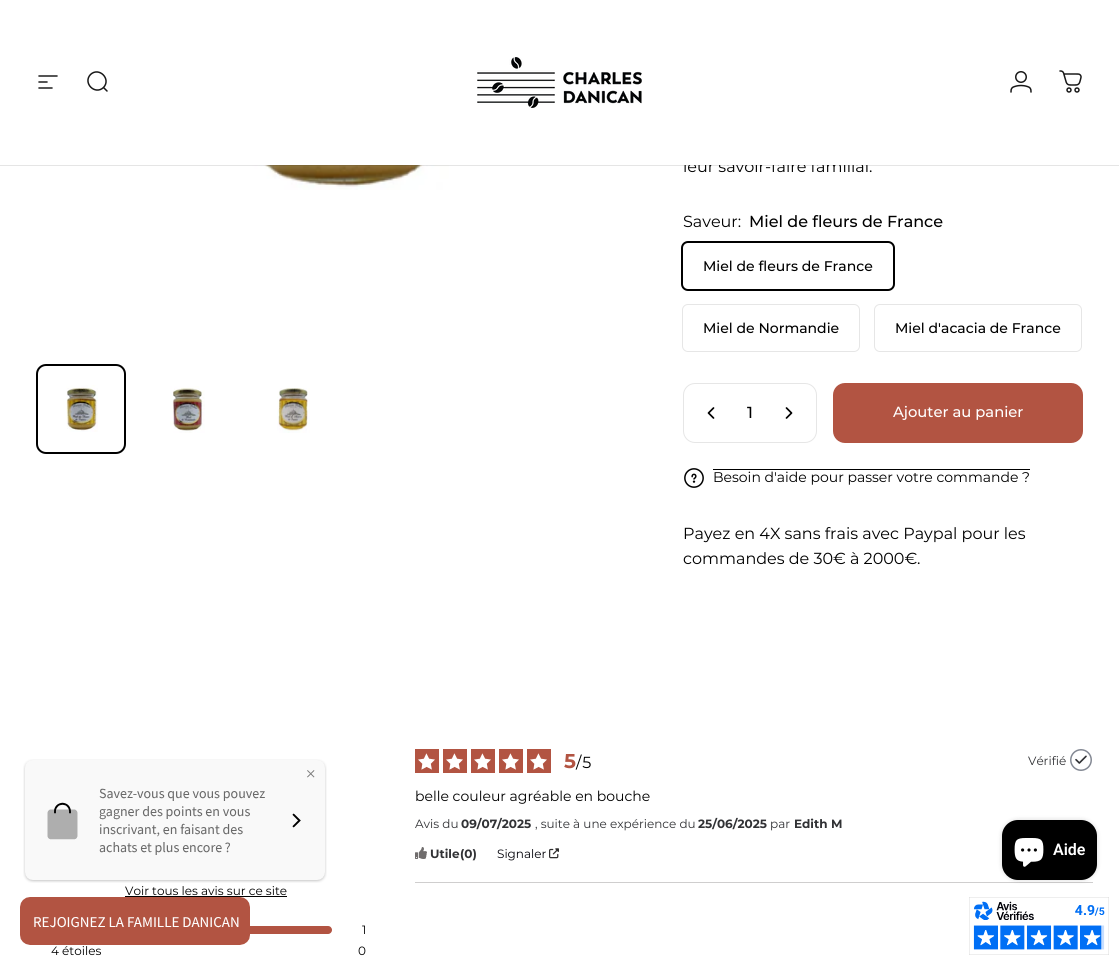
#include <cairo.h>
#include <math.h>
#include <stddef.h>

static cairo_t *c;
static void C(unsigned color){cairo_set_source_rgb(c, (color >> 16) / 255.0, (color >> 8 & 255) / 255.0, (color & 255) / 255.0);}
static void F(const char *family, double size, int italic, int bold){cairo_select_font_face(c, family, italic ? CAIRO_FONT_SLANT_ITALIC : CAIRO_FONT_SLANT_NORMAL,bold ? CAIRO_FONT_WEIGHT_BOLD : CAIRO_FONT_WEIGHT_NORMAL);cairo_set_font_size(c, size);}
static void T(double x, double y, const char *s){cairo_move_to(c, x, y);cairo_show_text(c, s);}
static void L(double x, double y, const char *s, double letter, double word){cairo_move_to(c, x, y);while (*s) {char ch[5] = {0};int n = 0;do ch[n++] = *s++; while ((*s & 0xC0) == 0x80);cairo_show_text(c, ch);cairo_rel_move_to(c, letter + word * (*ch == ' '), 0);}}
static void R(double x, double y, double w, double h){cairo_rectangle(c, x, y, w, h);cairo_fill(c);}
static void Q(double x, double y, double w, double h, double r){cairo_new_sub_path(c);cairo_arc(c, x + w - r, y + h - r, r, 0, M_PI / 2);cairo_arc(c, x + r, y + h - r, r, M_PI / 2, M_PI);cairo_arc(c, x + r, y + r, r, M_PI, 1.5 * M_PI);cairo_arc(c, x + w - r, y + r, r, 1.5 * M_PI, 2 * M_PI);cairo_close_path(c);}
static void S(double x, double y, double w, double h, double r, double blur, double alpha){cairo_push_group_with_content(c, CAIRO_CONTENT_ALPHA);cairo_set_operator(c, CAIRO_OPERATOR_SOURCE);for (int i = 15; i >= -15 && fmin(w, h) + blur * i / 3 > 0; i -= 2) {double e = blur * i / 6;cairo_set_source_rgba(c, 0, 0, 0, alpha * erfc((i - 1) / 8.5) / 2);Q(x - e, y - e, w + 2 * e, h + 2 * e, fmax(0, fmin(r + e + blur * .6, fmin(w, h) / 2 + e)));cairo_fill(c);}cairo_pattern_t *soft = cairo_pop_group(c);cairo_mask(c, soft);cairo_pattern_destroy(soft);}
static void I(const char *path, double x, double y, double w, double h){cairo_surface_t *image = cairo_image_surface_create_from_png(path);cairo_save(c);cairo_set_source_surface(c, image, x, y);cairo_rectangle(c, x, y, w, h);cairo_fill(c);cairo_restore(c);cairo_surface_destroy(image);}
int main(void) {
cairo_surface_t *surface = cairo_image_surface_create(CAIRO_FORMAT_RGB24, 1119, 965);
c = cairo_create(surface);
cairo_font_options_t *options = cairo_font_options_create();
cairo_font_options_set_hint_metrics(options, CAIRO_HINT_METRICS_OFF);
cairo_font_options_set_hint_style(options, CAIRO_HINT_STYLE_NONE);
cairo_set_font_options(c, options);
cairo_set_miter_limit(c, 4);
C(0xffffff);
cairo_paint(c);
cairo_new_path(c);
cairo_move_to(c,39,76);
cairo_line_to(c,57,76);
cairo_move_to(c,39,82);
cairo_line_to(c,47,82);
cairo_move_to(c,39,88);
cairo_line_to(c,52,88);
C(0x171717);
cairo_set_line_width(c,1.5);
cairo_set_line_cap(c,CAIRO_LINE_CAP_ROUND);
cairo_stroke(c);
cairo_new_path(c);
cairo_move_to(c,107,91);
cairo_line_to(c,103.5,87.5);
cairo_move_to(c,103.5,87.5);
cairo_curve_to(c,111.5,79,99,66.5,90.5,74.5);
cairo_curve_to(c,82.5,83,95,95.5,103.5,87.5);
cairo_close_path(c);
cairo_stroke(c);
I("1.png",477,57,165,51);
I("2.png",1010,71,22,22);
I("3.png",1059,70,23,23);
F("Montserrat",16,0,0);
C(0x000000);
T(683,172,"leur savoir-faire familial.");
C(0xffffff);
R(684,160,184,5);
I("4.png",243,165,206,25);
cairo_set_source_rgba(c,0.09,0.09,0.09,0.11);
R(0,165,1119,1);
I("5.png",66,385,32,47);
Q(37,365,88,88,9);
C(0x000000);
cairo_set_line_width(c,2);
cairo_set_line_cap(c,CAIRO_LINE_CAP_BUTT);
cairo_stroke(c);
I("6.png",170,386,35,47);
I("7.png",277,388,33,45);
T(683,227,"Saveur:");
F("Montserrat Medium",16,0,0);
T(749,227,"Miel de fleurs de France");
Q(682,242,212,48,6);
cairo_stroke(c);
F("Montserrat Medium",14,0,0);
T(703,271,"Miel de fleurs de France");
Q(682.5,304.5,177,47,5.5);
C(0xe6e6e6);
cairo_set_line_width(c,1);
cairo_stroke(c);
C(0x000000);
T(703,333,"Miel de Normandie");
Q(874.5,304.5,207,47,5.5);
C(0xe6e6e6);
cairo_stroke(c);
C(0x000000);
T(895,333,"Miel d'acacia de France");
Q(683.5,383.5,133,59,11.5);
C(0xe6e6e6);
cairo_stroke(c);
cairo_new_path(c);
cairo_move_to(c,713.5,408);
cairo_line_to(c,708.5,413);
cairo_line_to(c,713.5,418);
C(0x000000);
cairo_set_line_width(c,1.7);
cairo_set_line_cap(c,CAIRO_LINE_CAP_ROUND);
cairo_set_line_join(c,CAIRO_LINE_JOIN_ROUND);
cairo_stroke(c);
F("Montserrat Medium",16,0,0);
T(747,418,"1");
cairo_new_path(c);
cairo_move_to(c,786.5,408);
cairo_line_to(c,791.5,413);
cairo_line_to(c,786.5,418);
cairo_stroke(c);
C(0xb25442);
Q(834,384,248,58,11);
cairo_fill_preserve(c);
cairo_set_line_width(c,2);
cairo_set_line_cap(c,CAIRO_LINE_CAP_BUTT);
cairo_set_line_join(c,CAIRO_LINE_JOIN_MITER);
cairo_stroke(c);
F("Montserrat Medium",14.75,0,0);
C(0xffffff);
T(893,417,"Ajouter au panier");
I("8.png",684,468,20,20);
C(0x000000);
R(713,469,317,1);
F("Montserrat",14,0,0);
T(713,482,"Besoin d'aide pour passer votre commande ?");
F("Montserrat",16,0,0);
T(683,539,"Payez en 4X sans frais avec Paypal pour les");
T(683,564,"commandes de 30€ à 2000€.");
C(0xcfcece);
R(415,882,678,1);
C(0xb25442);
R(415,749,24,24);
I("9.png",418,753,17,17);
R(443,749,24,24);
I("9.png",446,753,17,17);
R(471,749,24,24);
I("9.png",474,753,17,17);
R(499,749,24,24);
I("9.png",502,753,17,17);
R(527,749,24,24);
I("9.png",530,753,17,17);
F("Montserrat",20,0,1);
L(564,768,"5",1,0);
F("Montserrat",16,0,0);
C(0x000000);
L(576,768,"/5",1,0);
F("Montserrat",12,0,0);
C(0x313235);
T(1028,765,"Vérifié");
I("10.png",1070,749,22,22);
F("Montserrat",14,0,0);
C(0x000000);
T(415,801,"belle couleur agréable en bouche");
F("Montserrat",12,0,0);
C(0x313235);
T(415,828,"Avis du");
F("Montserrat",12,0,1);
T(461,828,"09/07/2025");
F("Montserrat",12,0,0);
T(535,828,", suite à une expérience du");
F("Montserrat",12,0,1);
T(698,828,"25/06/2025");
F("Montserrat",12,0,0);
T(770,828,"par");
F("Montserrat",12,0,1);
T(794,828,"Edith M");
I("11.png",415,847,12,12);
T(430,858,"Utile");
T(460,858,"(0)");
F("Montserrat",12,0,0);
C(0x03030a);
T(497,858,"Signaler");
I("12.png",549,848,10,11);
C(0x000000);
T(125,895,"Voir tous les avis sur ce site");
C(0x010101);
R(125,896,162,1);
C(0xb25442);
Q(115,926,217,8,4);
cairo_fill(c);
C(0x000000);
T(362,934,"1");
T(51,955,"4 étoiles");
T(358,955,"0");
I("13.png",23,759,304,124);
C(0x000000);
S(1002,820,95,60,16,2.5,.15);
C(0x000000);
Q(1002,820,95,60,16);
cairo_fill(c);
I("14.png",1014,838,30,29);
F("Roboto SemiBold",16,0,0);
C(0xffffff);
T(1053,855,"Aide");
I("15.png",20,897,230,48);
I("16.png",969,897,140,58);
cairo_surface_write_to_png(surface, "o.png");
cairo_font_options_destroy(options);
cairo_destroy(c);
cairo_surface_destroy(surface);
return 0;
}
